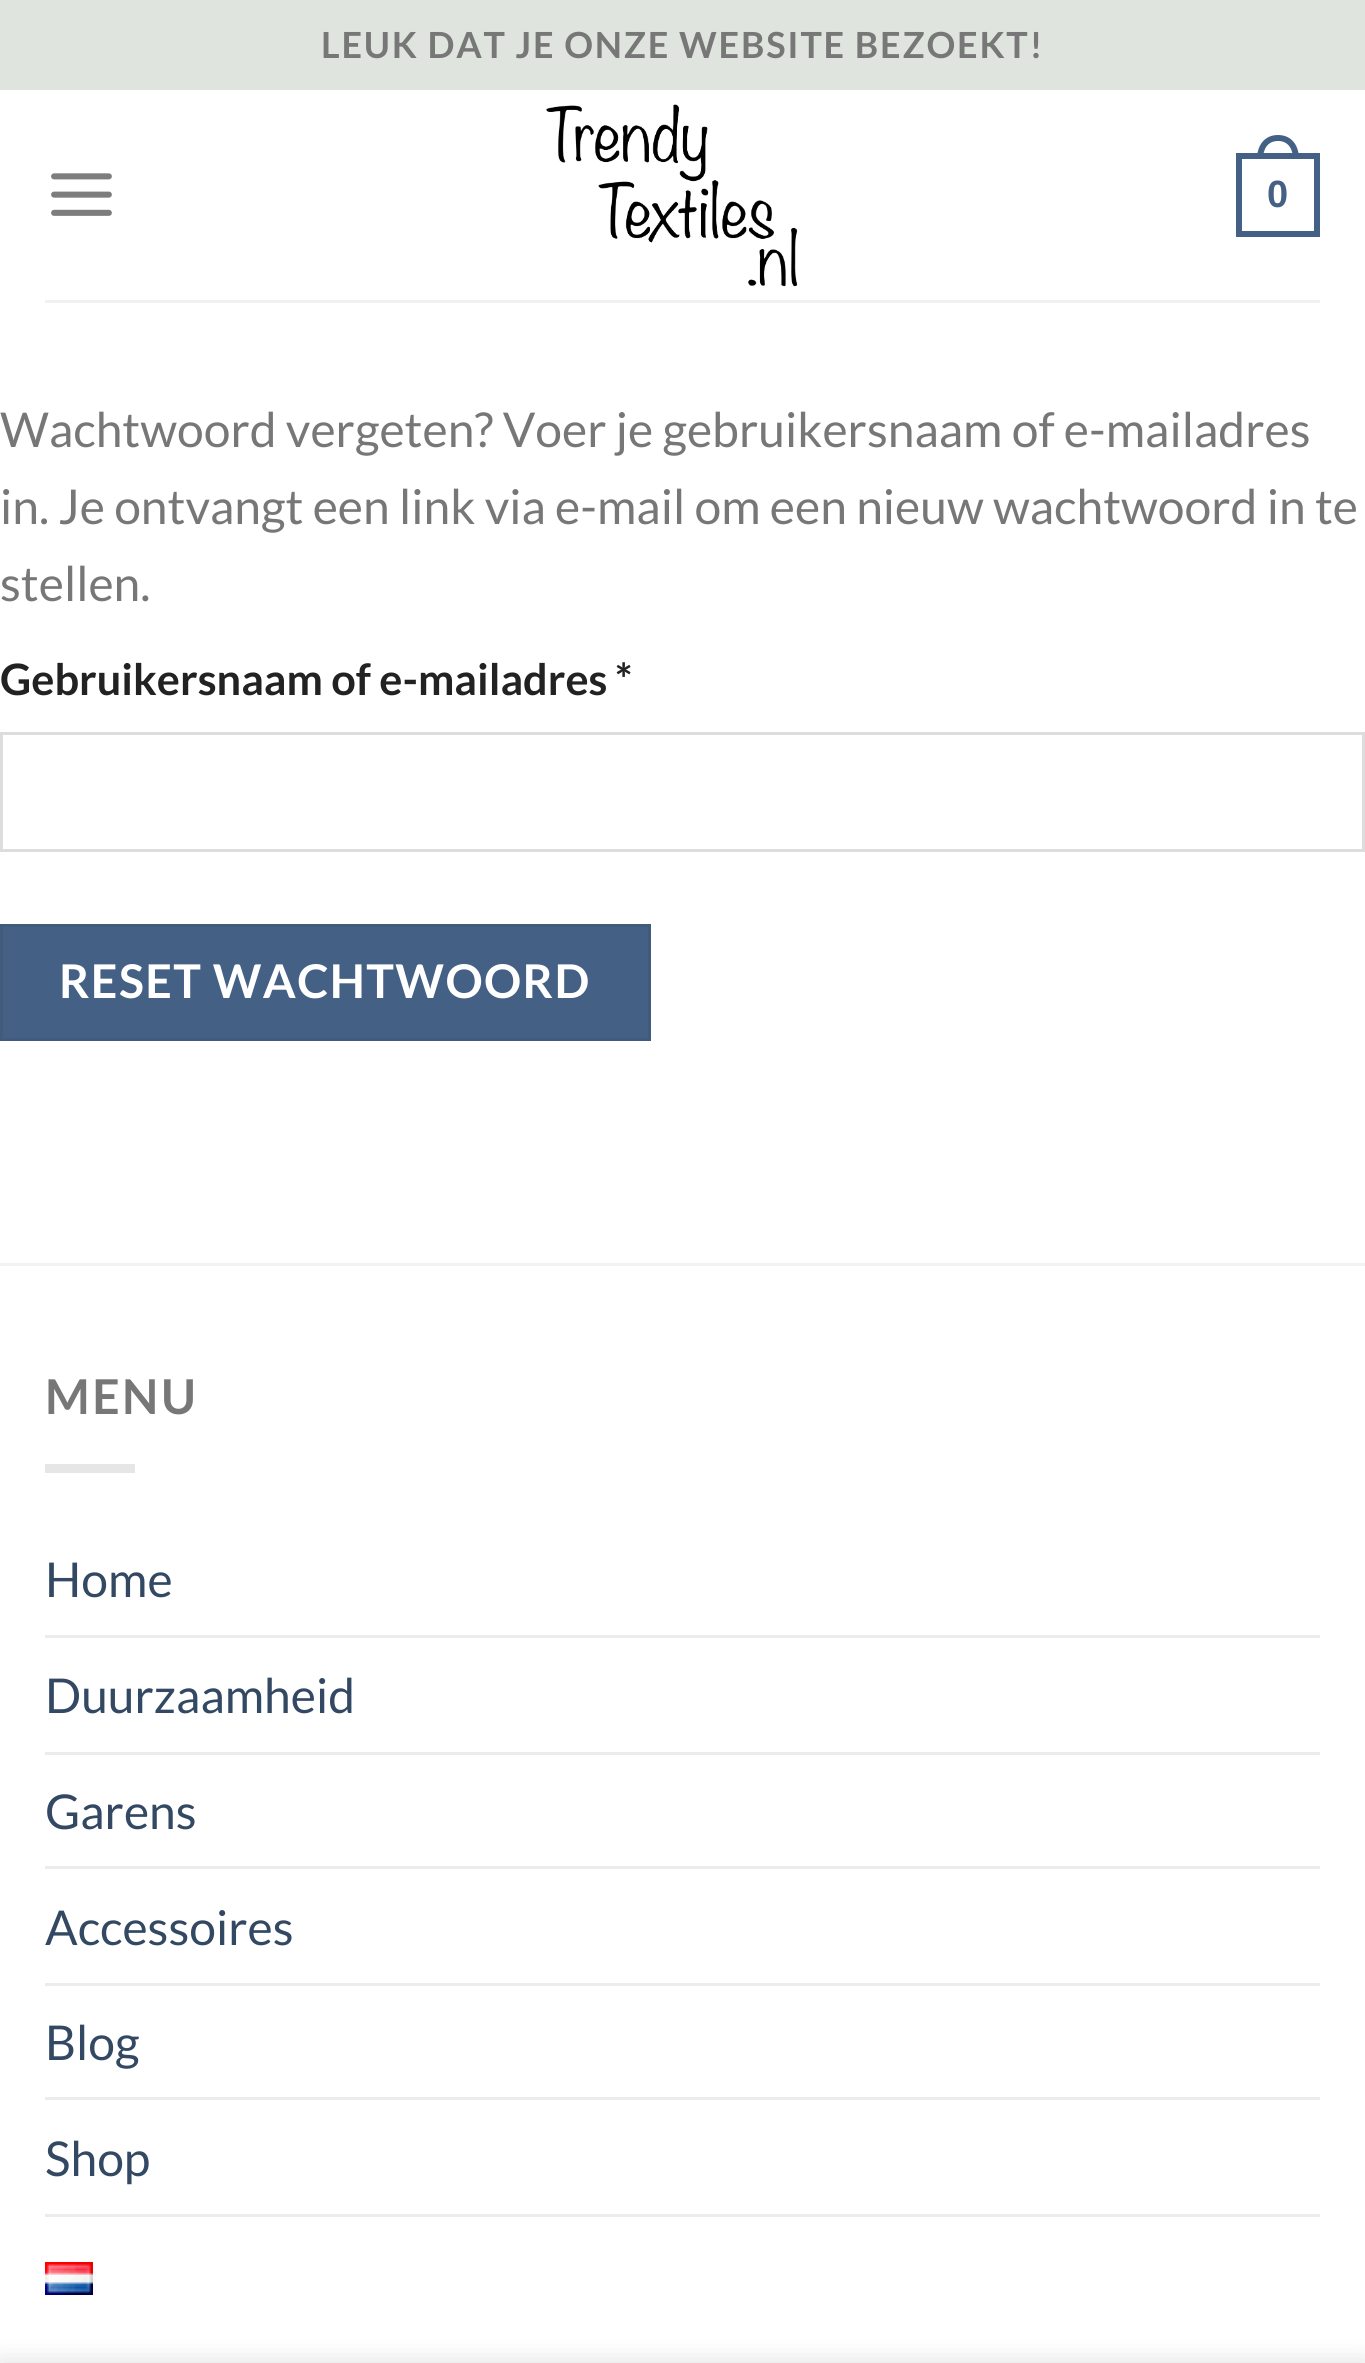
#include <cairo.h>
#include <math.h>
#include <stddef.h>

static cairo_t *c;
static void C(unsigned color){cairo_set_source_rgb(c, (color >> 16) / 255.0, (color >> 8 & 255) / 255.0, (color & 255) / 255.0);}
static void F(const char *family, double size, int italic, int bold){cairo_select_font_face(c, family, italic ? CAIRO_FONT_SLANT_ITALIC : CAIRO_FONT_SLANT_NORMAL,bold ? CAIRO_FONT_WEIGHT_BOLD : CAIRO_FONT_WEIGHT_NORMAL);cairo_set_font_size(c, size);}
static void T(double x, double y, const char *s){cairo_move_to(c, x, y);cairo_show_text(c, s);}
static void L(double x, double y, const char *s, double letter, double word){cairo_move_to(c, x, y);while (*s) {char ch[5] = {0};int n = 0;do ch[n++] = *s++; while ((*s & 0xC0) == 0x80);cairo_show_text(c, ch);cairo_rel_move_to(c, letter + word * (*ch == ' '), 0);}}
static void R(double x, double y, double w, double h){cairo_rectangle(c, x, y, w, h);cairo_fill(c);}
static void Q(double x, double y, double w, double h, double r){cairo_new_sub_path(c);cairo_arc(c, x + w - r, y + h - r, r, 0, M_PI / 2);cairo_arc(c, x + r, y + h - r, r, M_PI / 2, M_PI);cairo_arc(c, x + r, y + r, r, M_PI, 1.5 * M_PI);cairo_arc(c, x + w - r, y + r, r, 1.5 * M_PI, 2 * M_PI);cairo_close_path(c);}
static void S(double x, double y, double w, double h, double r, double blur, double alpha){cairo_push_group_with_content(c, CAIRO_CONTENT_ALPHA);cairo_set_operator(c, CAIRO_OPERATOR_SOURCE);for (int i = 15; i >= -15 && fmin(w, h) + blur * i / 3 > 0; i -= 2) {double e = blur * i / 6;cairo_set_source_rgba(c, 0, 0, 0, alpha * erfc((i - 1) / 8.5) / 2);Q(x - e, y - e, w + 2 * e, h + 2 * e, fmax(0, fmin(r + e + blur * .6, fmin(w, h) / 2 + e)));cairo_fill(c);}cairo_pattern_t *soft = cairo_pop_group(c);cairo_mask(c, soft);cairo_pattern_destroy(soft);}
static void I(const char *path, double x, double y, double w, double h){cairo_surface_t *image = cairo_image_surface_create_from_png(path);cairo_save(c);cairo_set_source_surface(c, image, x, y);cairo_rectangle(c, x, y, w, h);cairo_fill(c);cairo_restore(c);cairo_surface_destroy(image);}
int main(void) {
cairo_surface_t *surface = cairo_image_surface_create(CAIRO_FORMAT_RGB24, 1365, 2363);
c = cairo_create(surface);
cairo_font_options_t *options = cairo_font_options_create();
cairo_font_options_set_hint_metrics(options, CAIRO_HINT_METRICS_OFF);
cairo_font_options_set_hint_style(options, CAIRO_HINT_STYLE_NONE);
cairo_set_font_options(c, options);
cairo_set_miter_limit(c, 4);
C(0xffffff);
cairo_paint(c);
C(0xdfe5de);
R(0,0,1365,90);
F("Lato",36,0,1);
C(0x777777);
L(321,58,"LEUK DAT JE ONZE WEBSITE BEZOEKT!",1.8,0);
I("1.png",51,173,61,43);
I("2.png",546,104,252,183);
cairo_rectangle(c,1239,156,78,78);
C(0x446084);
cairo_set_line_width(c,6);
cairo_stroke(c);
cairo_set_fill_rule(c,CAIRO_FILL_RULE_EVEN_ODD);
cairo_new_path(c);
cairo_move_to(c,1278,135);
cairo_curve_to(c,1292,135,1299,146,1299,159);
cairo_line_to(c,1257,159);
cairo_curve_to(c,1257,146,1264,135,1278,135);
cairo_close_path(c);
cairo_move_to(c,1278,141);
cairo_curve_to(c,1289,141,1293,150,1293,159);
cairo_line_to(c,1263,159);
cairo_curve_to(c,1263,150,1267,141,1278,141);
cairo_close_path(c);
cairo_fill(c);
F("Liberation Sans",38,0,1);
T(1267,207,"0");
C(0xf1f1f1);
R(45,300,1275,3);
F("Lato",48,0,0);
C(0x777777);
T(0,447,"Wachtwoord vergeten? Voer je gebruikersnaam of e-mailadres");
T(0,524,"in. Je ontvangt een link via e-mail om een nieuw wachtwoord in te");
T(0,601,"stellen.");
F("Lato",43.25,0,1);
C(0x222222);
T(0,695,"Gebruikersnaam of e-mailadres");
T(615,695,"*");
cairo_rectangle(c,1.5,733.5,1362,117);
C(0xdddddd);
cairo_set_line_width(c,3);
cairo_stroke(c);
C(0x446084);
cairo_rectangle(c,1.5,925.5,648,114);
cairo_fill_preserve(c);
C(0x415b7d);
cairo_stroke(c);
F("Lato",46.5,0,1);
C(0xffffff);
L(59,998,"RESET WACHTWOORD",1.4,0);
C(0xf2f2f2);
R(0,1263,1365,3);
F("Lato",48,0,1);
C(0x777777);
L(45,1414,"MENU",2.5,0);
C(0xe6e6e6);
R(45,1464,90,9);
F("Lato",48,0,0);
C(0x334862);
T(45,1597,"Home");
C(0xececec);
R(45,1635,1275,3);
C(0x334862);
T(45,1713,"Duurzaamheid");
C(0xececec);
R(45,1752,1275,3);
C(0x334862);
T(45,1829,"Garens");
C(0xececec);
R(45,1866,1275,3);
C(0x334862);
T(45,1945,"Accessoires");
C(0xececec);
R(45,1983,1275,3);
C(0x334862);
T(45,2060,"Blog");
C(0xececec);
R(45,2097,1275,3);
C(0x334862);
T(45,2176,"Shop");
C(0xececec);
R(45,2214,1275,3);
I("3.png",45,2262,48,33);
C(0x000000);
S(0,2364,1365,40,0,13.5,.14);
cairo_surface_write_to_png(surface, "o.png");
cairo_font_options_destroy(options);
cairo_destroy(c);
cairo_surface_destroy(surface);
return 0;
}
